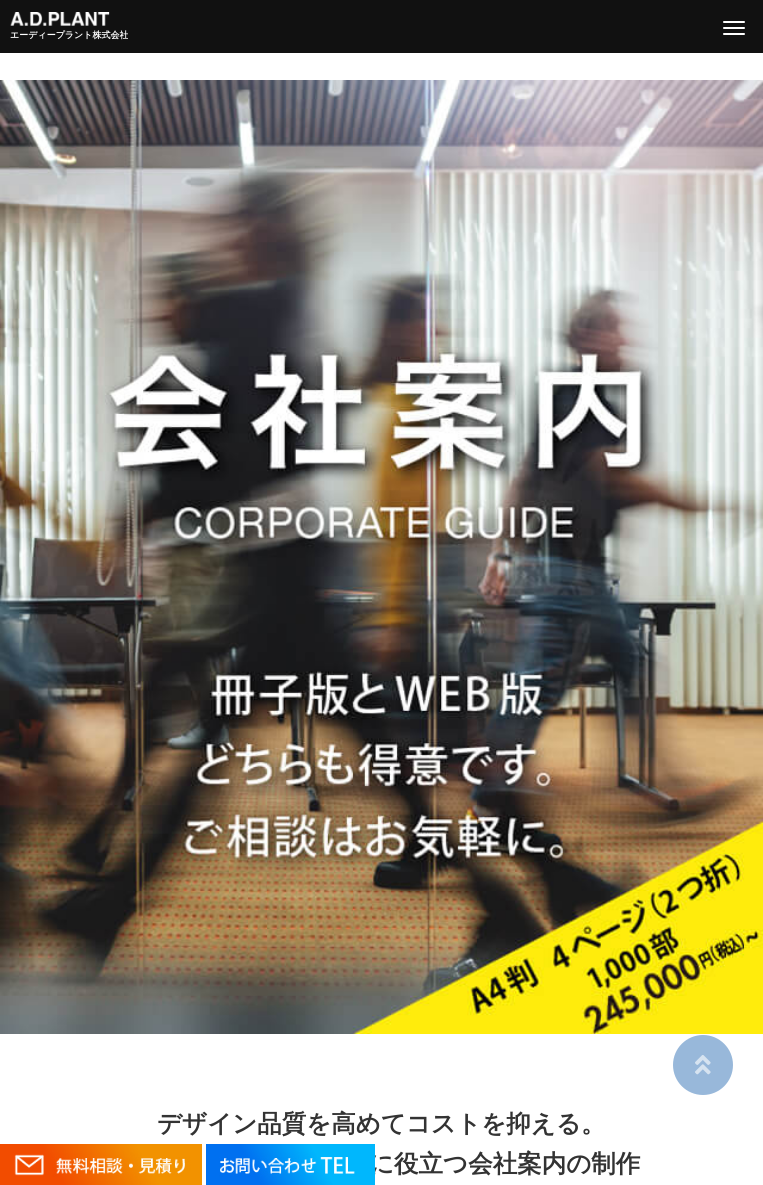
#include <cairo.h>
#include <math.h>
#include <stddef.h>

static cairo_t *c;
static void C(unsigned color){cairo_set_source_rgb(c, (color >> 16) / 255.0, (color >> 8 & 255) / 255.0, (color & 255) / 255.0);}
static void F(const char *family, double size, int italic, int bold){cairo_select_font_face(c, family, italic ? CAIRO_FONT_SLANT_ITALIC : CAIRO_FONT_SLANT_NORMAL,bold ? CAIRO_FONT_WEIGHT_BOLD : CAIRO_FONT_WEIGHT_NORMAL);cairo_set_font_size(c, size);}
static void T(double x, double y, const char *s){cairo_move_to(c, x, y);cairo_show_text(c, s);}
static void R(double x, double y, double w, double h){cairo_rectangle(c, x, y, w, h);cairo_fill(c);}
static void Q(double x, double y, double w, double h, double r){cairo_new_sub_path(c);cairo_arc(c, x + w - r, y + h - r, r, 0, M_PI / 2);cairo_arc(c, x + r, y + h - r, r, M_PI / 2, M_PI);cairo_arc(c, x + r, y + r, r, M_PI, 1.5 * M_PI);cairo_arc(c, x + w - r, y + r, r, 1.5 * M_PI, 2 * M_PI);cairo_close_path(c);}
static void I(const char *path, double x, double y, double w, double h){cairo_surface_t *image = cairo_image_surface_create_from_png(path);cairo_save(c);cairo_set_source_surface(c, image, x, y);cairo_rectangle(c, x, y, w, h);cairo_fill(c);cairo_restore(c);cairo_surface_destroy(image);}
int main(void) {
cairo_surface_t *surface = cairo_image_surface_create(CAIRO_FORMAT_RGB24, 763, 1185);
c = cairo_create(surface);
cairo_font_options_t *options = cairo_font_options_create();
cairo_font_options_set_hint_metrics(options, CAIRO_HINT_METRICS_OFF);
cairo_font_options_set_hint_style(options, CAIRO_HINT_STYLE_NONE);
cairo_set_font_options(c, options);
cairo_set_miter_limit(c, 4);
C(0xffffff);
cairo_paint(c);
C(0x111111);
R(0,0,763,53);
I("1.png",10,12,100,14);
F("WenQuanYi Zen Hei",9,0,1);
C(0xffffff);
T(10,38,"エーディープラント株式会社");
Q(723,21,22,2,1);
cairo_fill(c);
Q(723,27,22,2,1);
cairo_fill(c);
Q(723,33,22,2,1);
cairo_fill(c);
C(0x98b8da);
cairo_arc(c,703,1065,30,0,2 * M_PI);
cairo_fill(c);
I("2.png",695,1055,16,20);
I("3.png",0,80,763,954);
F("WenQuanYi Zen Hei",24.5,0,1);
C(0x333333);
T(157,1132,"デザイン品質を高めてコストを抑える。");
T(369,1172,"に役立つ会社案内の制作");
I("4.png",0,1144,202,41);
I("5.png",206,1144,169,41);
cairo_surface_write_to_png(surface, "o.png");
cairo_font_options_destroy(options);
cairo_destroy(c);
cairo_surface_destroy(surface);
return 0;
}
